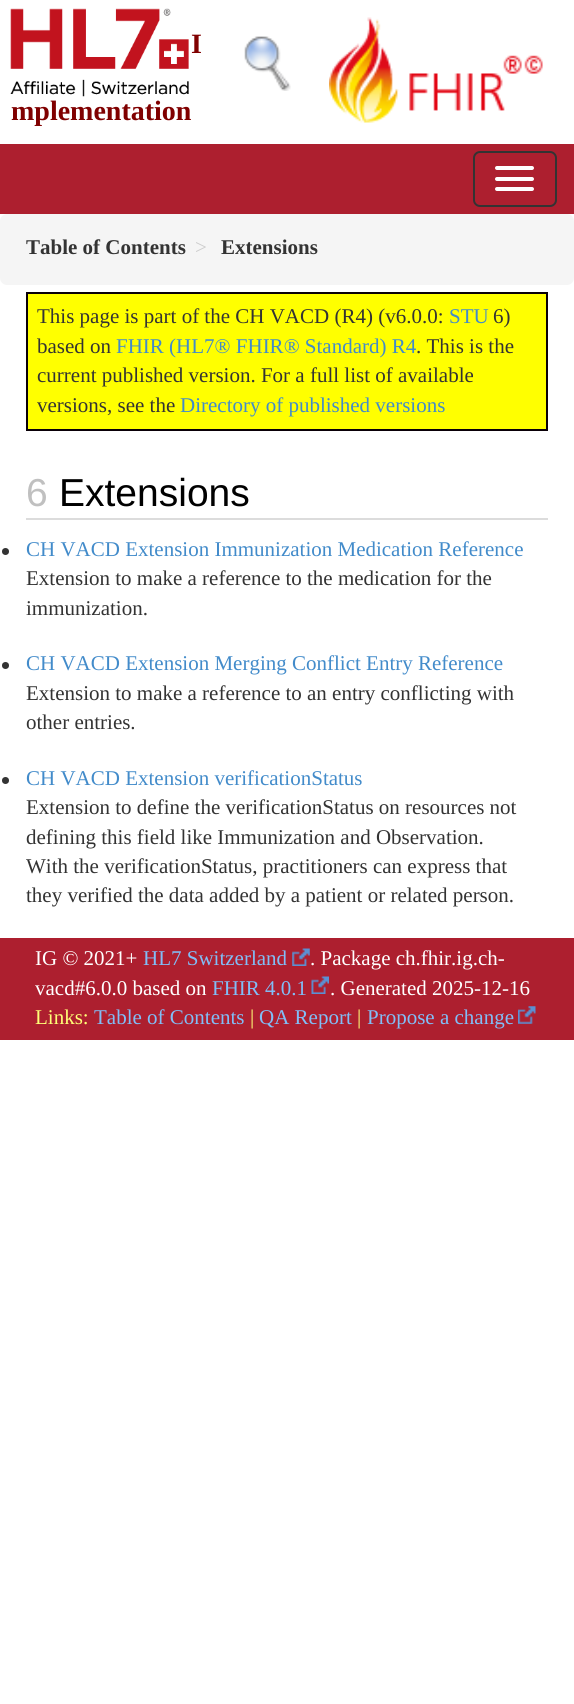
#include <cairo.h>
#include <math.h>
#include <stddef.h>

static cairo_t *c;
static void C(unsigned color){cairo_set_source_rgb(c, (color >> 16) / 255.0, (color >> 8 & 255) / 255.0, (color & 255) / 255.0);}
static void F(const char *family, double size, int italic, int bold){cairo_select_font_face(c, family, italic ? CAIRO_FONT_SLANT_ITALIC : CAIRO_FONT_SLANT_NORMAL,bold ? CAIRO_FONT_WEIGHT_BOLD : CAIRO_FONT_WEIGHT_NORMAL);cairo_set_font_size(c, size);}
static void T(double x, double y, const char *s){cairo_move_to(c, x, y);cairo_show_text(c, s);}
static void R(double x, double y, double w, double h){cairo_rectangle(c, x, y, w, h);cairo_fill(c);}
static void Q(double x, double y, double w, double h, double r){cairo_new_sub_path(c);cairo_arc(c, x + w - r, y + h - r, r, 0, M_PI / 2);cairo_arc(c, x + r, y + h - r, r, M_PI / 2, M_PI);cairo_arc(c, x + r, y + r, r, M_PI, 1.5 * M_PI);cairo_arc(c, x + w - r, y + r, r, 1.5 * M_PI, 2 * M_PI);cairo_close_path(c);}
static void I(const char *path, double x, double y, double w, double h){cairo_surface_t *image = cairo_image_surface_create_from_png(path);cairo_save(c);cairo_set_source_surface(c, image, x, y);cairo_rectangle(c, x, y, w, h);cairo_fill(c);cairo_restore(c);cairo_surface_destroy(image);}
int main(void) {
cairo_surface_t *surface = cairo_image_surface_create(CAIRO_FORMAT_RGB24, 574, 1704);
c = cairo_create(surface);
cairo_font_options_t *options = cairo_font_options_create();
cairo_font_options_set_hint_metrics(options, CAIRO_HINT_METRICS_OFF);
cairo_font_options_set_hint_style(options, CAIRO_HINT_STYLE_NONE);
cairo_set_font_options(c, options);
cairo_set_miter_limit(c, 4);
C(0xffffff);
cairo_paint(c);
I("1.png",10,8,179,89);
I("2.png",329,17,214,106);
F("Liberation Serif",28,0,1);
C(0x800000);
T(191,53,"I");
T(11,120,"mplementation");
I("3.png",244,36,47,55);
C(0xad1f2f);
R(0,144,574,70);
Q(474,152,82,54,6);
C(0x333333);
cairo_stroke(c);
C(0xffffff);
Q(495,166,39,4,2);
cairo_fill(c);
Q(495,177,39,4,2);
cairo_fill(c);
Q(495,187,39,4,2);
cairo_fill(c);
C(0xf5f5f5);
Q(0,214,574,71,7);
cairo_fill(c);
F("Liberation Serif",21,0,1);
C(0x333333);
T(26,254,"Table of Contents");
F("Liberation Serif",21,0,0);
C(0xcccccc);
T(195,254,">");
F("Liberation Serif",21,0,1);
C(0x333333);
T(221,254,"Extensions");
C(0xffff00);
cairo_rectangle(c,27,293,520,137);
cairo_fill_preserve(c);
C(0x0a0008);
cairo_stroke(c);
F("Liberation Serif",21,0,0);
C(0x333333);
T(37,323,"This page is part of the CH VACD (R4) (v6.0.0:");
C(0x428bca);
T(449,323,"STU");
C(0x333333);
T(493,323,"6)");
T(37,353,"based on");
C(0x428bca);
T(116,353,"FHIR (HL7® FHIR® Standard) R4");
C(0x333333);
T(416,353,". This is the");
T(37,382,"current published version. For a full list of available");
T(37,412,"versions, see the");
C(0x428bca);
T(180,412,"Directory of published versions");
C(0xdcdcdc);
R(26,518,522,2);
F("Liberation Sans",39,0,0);
C(0xc0c0c0);
T(26,506,"6");
C(0x000000);
T(59,506,"Extensions");
C(0x333333);
cairo_new_path(c);
cairo_arc(c,5.5,551.5,3.5,0,2 * M_PI);
cairo_fill(c);
F("Liberation Serif",21,0,0);
C(0x428bca);
T(26,556,"CH VACD Extension Immunization Medication Reference");
C(0x333333);
T(26,585,"Extension to make a reference to the medication for the");
T(26,615,"immunization.");
cairo_new_path(c);
cairo_arc(c,5.5,665.5,3.5,0,2 * M_PI);
cairo_fill(c);
C(0x428bca);
T(26,670,"CH VACD Extension Merging Conflict Entry Reference");
C(0x333333);
T(26,700,"Extension to make a reference to an entry conflicting with");
T(26,729,"other entries.");
cairo_new_path(c);
cairo_arc(c,5.5,780.5,3.5,0,2 * M_PI);
cairo_fill(c);
C(0x428bca);
T(26,785,"CH VACD Extension verificationStatus");
C(0x333333);
T(26,814,"Extension to define the verificationStatus on resources not");
T(26,844,"defining this field like Immunization and Observation.");
T(26,873,"With the verificationStatus, practitioners can express that");
T(26,902,"they verified the data added by a patient or related person.");
C(0xad1f2f);
R(0,938,574,102);
C(0xffffff);
T(35,965,"IG © 2021+");
C(0x81bef7);
T(143,965,"HL7 Switzerland");
I("4.png",292,948,18,18);
C(0xffffff);
T(310,965,". Package ch.fhir.ig.ch-");
T(35,995,"vacd#6.0.0 based on");
C(0x81bef7);
T(212,995,"FHIR 4.0.1");
I("5.png",311,976,18,18);
C(0xffffff);
T(330,995,". Generated 2025-12-16");
C(0xffff77);
T(35,1024,"Links:");
C(0x81bef7);
T(94,1024,"Table of Contents");
C(0xffff77);
T(250,1024,"|");
C(0x81bef7);
T(259,1024,"QA Report");
C(0xffff77);
T(357,1024,"|");
C(0x81bef7);
T(367,1024,"Propose a change");
I("6.png",518,1006,18,18);
cairo_surface_write_to_png(surface, "o.png");
cairo_font_options_destroy(options);
cairo_destroy(c);
cairo_surface_destroy(surface);
return 0;
}
